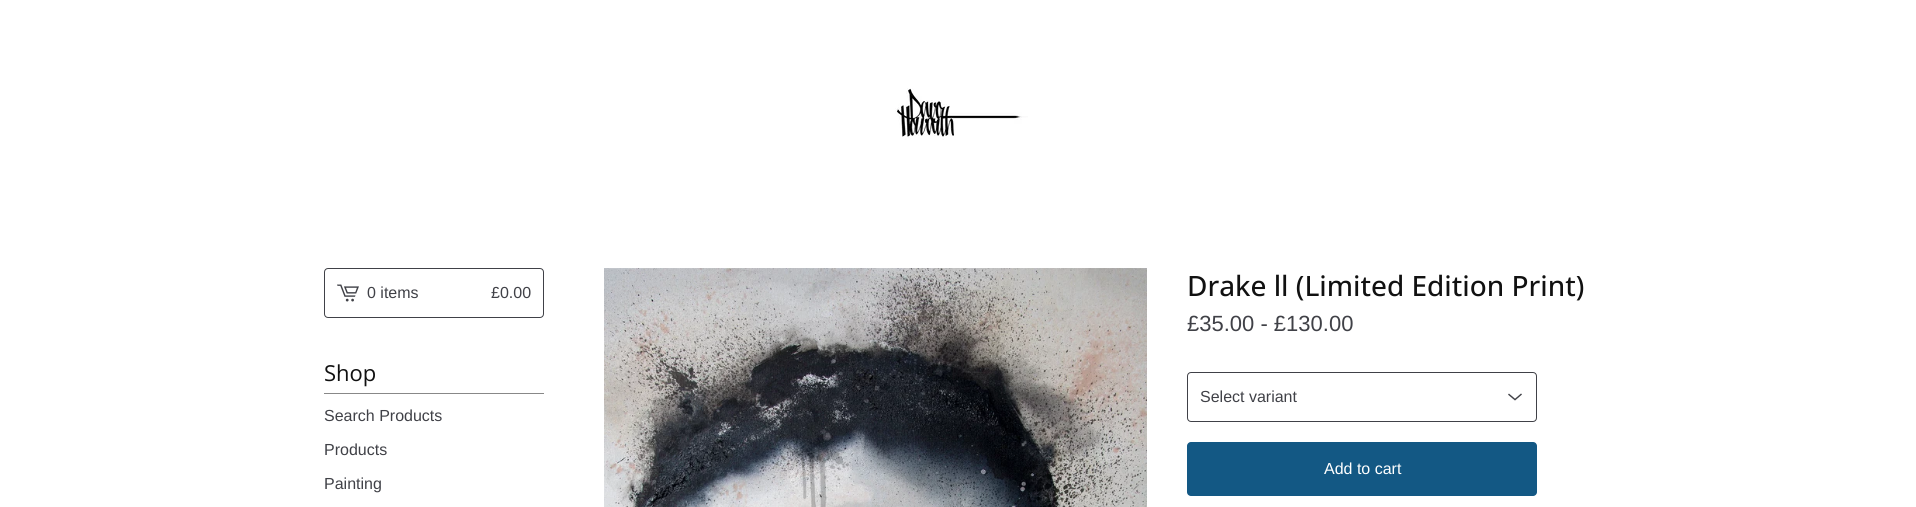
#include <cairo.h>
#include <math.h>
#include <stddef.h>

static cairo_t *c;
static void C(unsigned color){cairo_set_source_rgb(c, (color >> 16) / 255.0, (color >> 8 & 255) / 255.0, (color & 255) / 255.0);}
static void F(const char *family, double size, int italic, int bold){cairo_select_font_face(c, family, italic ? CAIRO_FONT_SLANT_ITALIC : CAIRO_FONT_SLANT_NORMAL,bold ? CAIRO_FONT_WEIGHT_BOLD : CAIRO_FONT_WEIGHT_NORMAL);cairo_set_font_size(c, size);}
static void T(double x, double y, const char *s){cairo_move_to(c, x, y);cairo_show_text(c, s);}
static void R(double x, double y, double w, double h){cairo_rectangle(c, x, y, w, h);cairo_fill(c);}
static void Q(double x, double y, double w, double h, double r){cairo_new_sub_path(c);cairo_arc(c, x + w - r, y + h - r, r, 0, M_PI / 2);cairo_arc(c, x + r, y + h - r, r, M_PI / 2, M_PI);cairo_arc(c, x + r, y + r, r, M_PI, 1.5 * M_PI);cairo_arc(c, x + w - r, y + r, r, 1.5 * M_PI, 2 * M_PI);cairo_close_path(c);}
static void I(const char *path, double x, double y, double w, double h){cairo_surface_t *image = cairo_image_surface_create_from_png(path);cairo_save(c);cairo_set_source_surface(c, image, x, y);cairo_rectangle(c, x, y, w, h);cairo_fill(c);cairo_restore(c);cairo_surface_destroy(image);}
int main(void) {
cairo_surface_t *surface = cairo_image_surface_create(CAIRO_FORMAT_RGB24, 1916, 507);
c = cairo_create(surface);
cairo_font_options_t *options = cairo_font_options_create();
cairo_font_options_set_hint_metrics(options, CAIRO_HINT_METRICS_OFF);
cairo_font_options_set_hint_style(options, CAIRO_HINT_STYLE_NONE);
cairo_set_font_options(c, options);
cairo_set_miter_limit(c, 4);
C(0xffffff);
cairo_paint(c);
I("1.png",895,88,133,52);
Q(324.5,268.5,219,49,3.5);
C(0x404147);
cairo_set_line_width(c,1);
cairo_stroke(c);
I("2.png",337,284,22,18);
F("Liberation Sans",16,0,0);
T(367,298,"0 items");
T(491,298,"£0.00");
C(0x888888);
R(324,393,220,1);
F("Open Sans",22,0,0);
C(0x111111);
T(324,381,"Shop");
F("Liberation Sans",16,0,0);
C(0x404147);
T(324,421,"Search Products");
T(324,455,"Products");
T(324,489,"Painting");
I("3.png",604,268,543,239);
F("Open Sans Medium",28,0,0);
C(0x111111);
T(1187,296,"Drake ll (Limited Edition Print)");
F("Liberation Sans",22,0,0);
C(0x404147);
T(1187,331,"£35.00 - £130.00");
Q(1187.5,372.5,349,49,3.5);
cairo_stroke(c);
F("Liberation Sans",16,0,0);
T(1200,402,"Select variant");
I("4.png",1508,393,14,8);
C(0x135884);
Q(1187,442,350,54,4);
cairo_fill(c);
C(0xffffff);
T(1324,474,"Add to cart");
cairo_surface_write_to_png(surface, "o.png");
cairo_font_options_destroy(options);
cairo_destroy(c);
cairo_surface_destroy(surface);
return 0;
}
